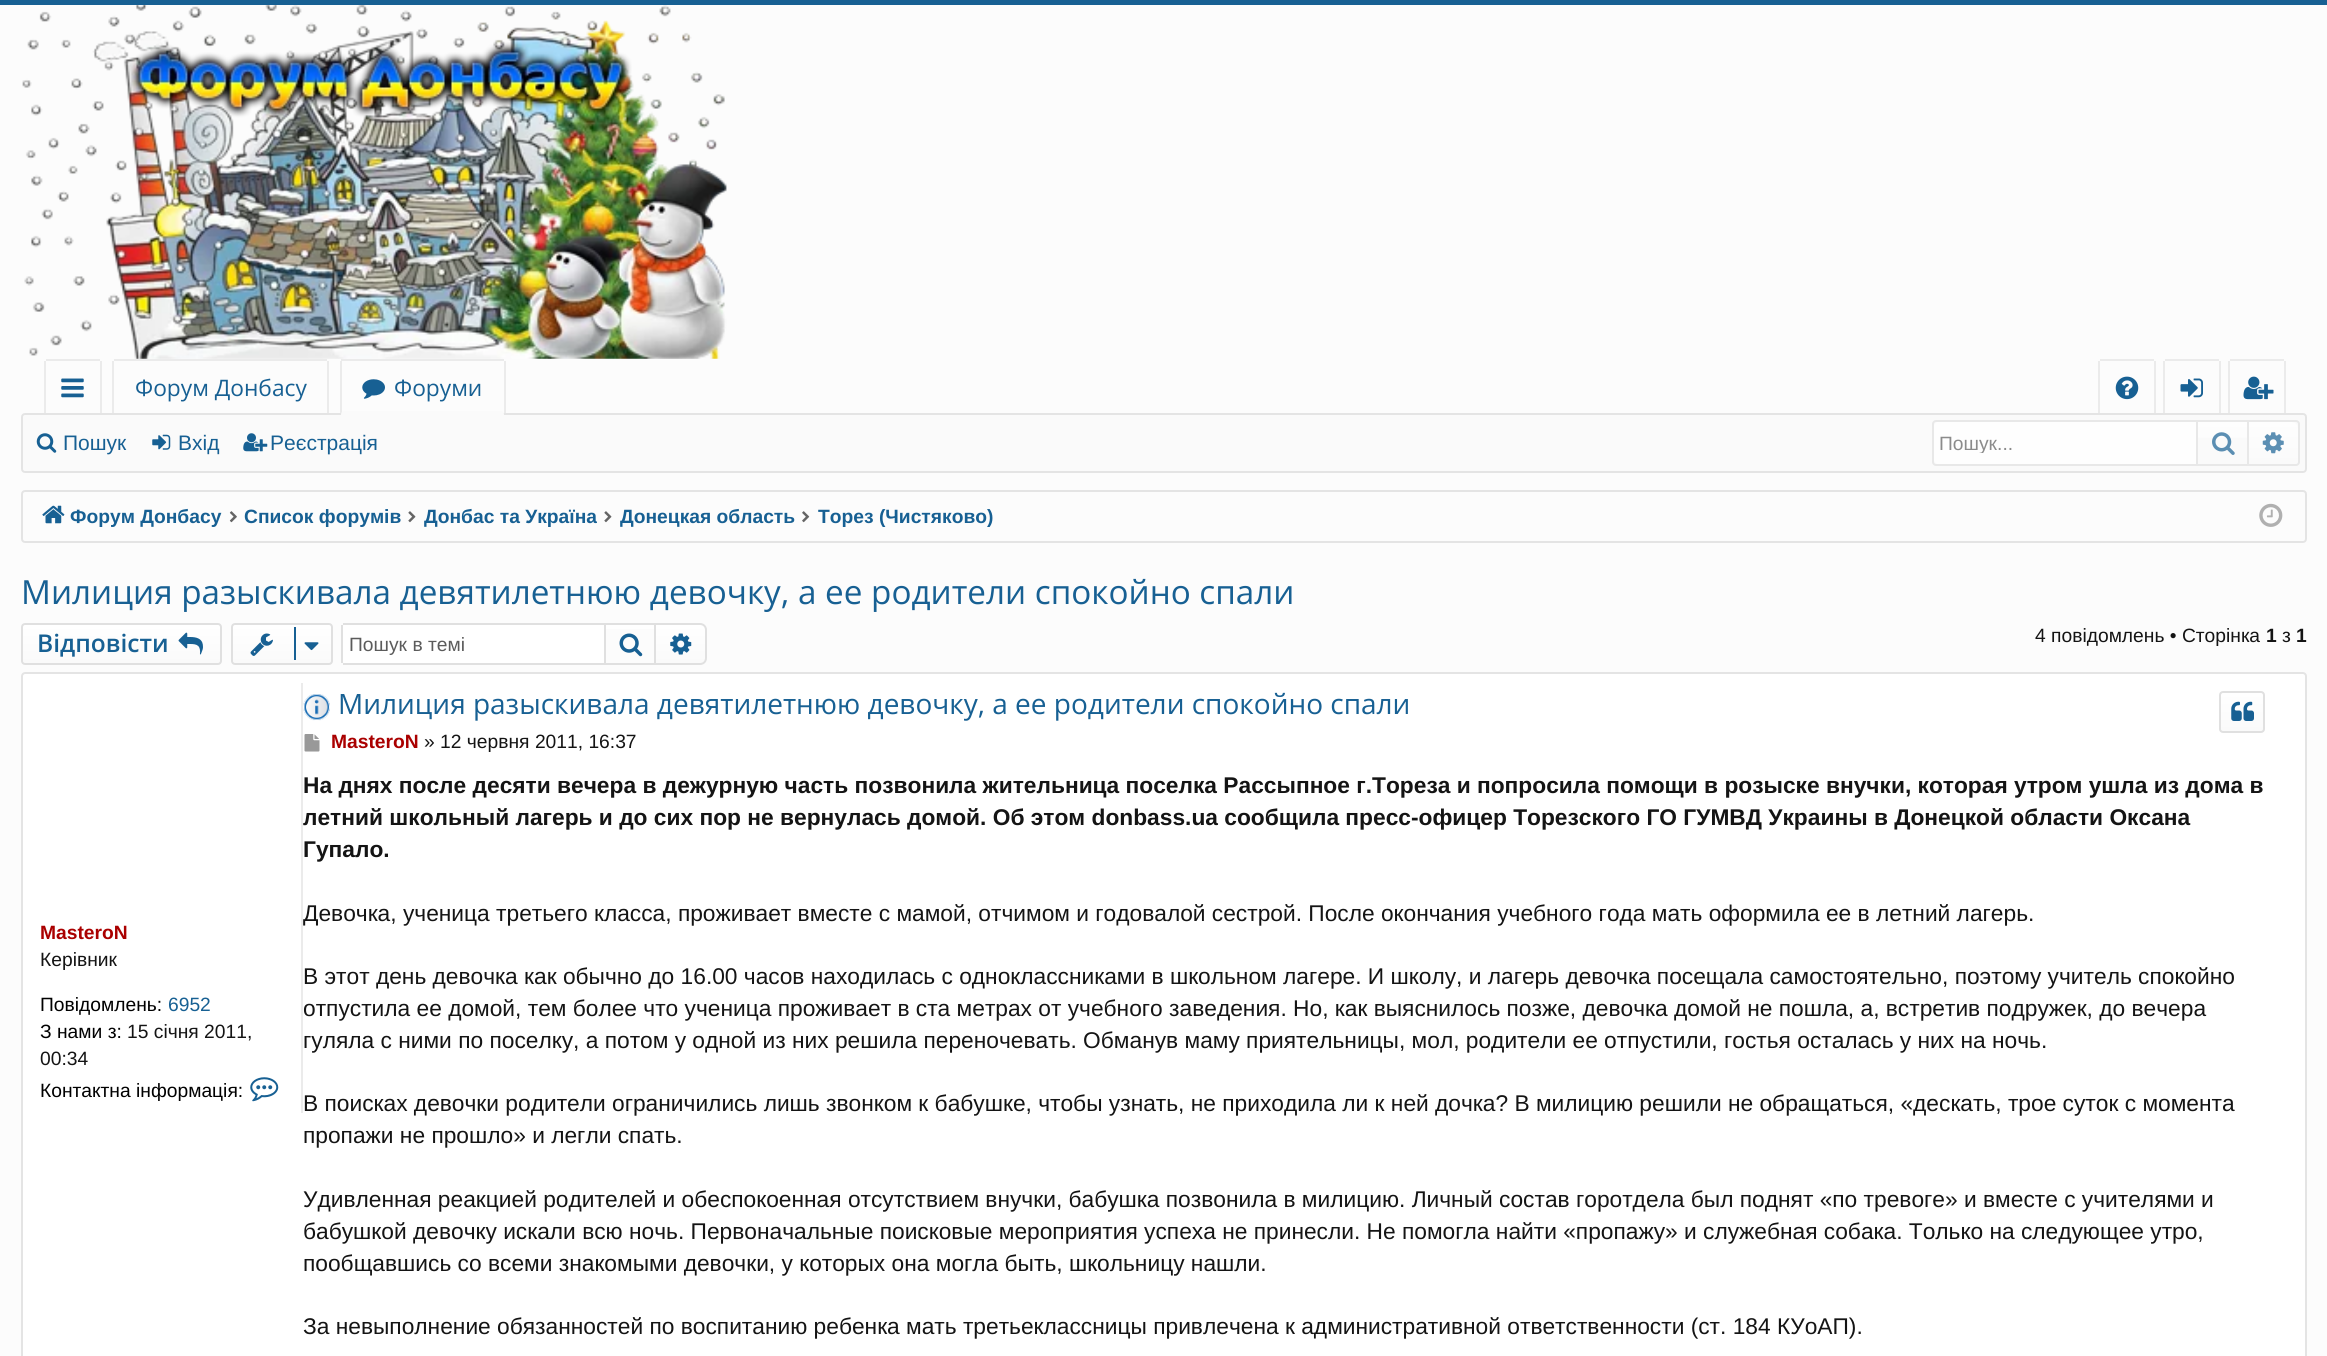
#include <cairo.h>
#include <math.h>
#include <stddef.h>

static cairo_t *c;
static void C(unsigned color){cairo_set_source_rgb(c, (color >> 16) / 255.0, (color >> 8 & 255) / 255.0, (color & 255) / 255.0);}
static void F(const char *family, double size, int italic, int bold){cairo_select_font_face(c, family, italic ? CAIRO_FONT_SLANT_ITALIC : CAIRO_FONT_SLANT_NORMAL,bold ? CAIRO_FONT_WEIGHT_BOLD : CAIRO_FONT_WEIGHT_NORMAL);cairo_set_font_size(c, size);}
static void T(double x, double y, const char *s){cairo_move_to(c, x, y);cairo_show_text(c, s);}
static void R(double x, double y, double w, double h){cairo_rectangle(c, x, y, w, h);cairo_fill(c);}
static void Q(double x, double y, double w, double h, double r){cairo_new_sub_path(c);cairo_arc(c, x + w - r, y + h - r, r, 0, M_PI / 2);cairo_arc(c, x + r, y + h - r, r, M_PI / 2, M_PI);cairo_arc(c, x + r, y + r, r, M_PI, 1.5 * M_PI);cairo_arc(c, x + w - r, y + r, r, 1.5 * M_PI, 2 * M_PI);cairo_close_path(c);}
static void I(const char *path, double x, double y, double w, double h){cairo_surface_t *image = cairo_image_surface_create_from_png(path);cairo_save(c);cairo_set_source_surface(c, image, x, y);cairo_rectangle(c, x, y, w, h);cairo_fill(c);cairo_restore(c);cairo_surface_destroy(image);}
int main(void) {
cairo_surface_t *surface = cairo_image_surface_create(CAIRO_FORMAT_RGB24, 2327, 1356);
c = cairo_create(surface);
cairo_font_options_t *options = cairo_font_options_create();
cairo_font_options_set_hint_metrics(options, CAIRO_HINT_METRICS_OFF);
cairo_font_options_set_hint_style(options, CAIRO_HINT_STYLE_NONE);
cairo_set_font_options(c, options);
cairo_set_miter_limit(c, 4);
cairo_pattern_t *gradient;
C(0xfcfcfc);
cairo_paint(c);
C(0x176093);
R(0,0,2327,5);
I("1.png",22,5,705,354);
C(0xebebeb);
R(46,359,54,2);
R(100,361,2,54);
R(44,361,2,54);
I("2.png",61,378,23,20);
R(114,359,213,2);
R(327,361,2,54);
R(112,361,2,54);
F("Open Sans",22.75,0,0);
C(0x176093);
T(135,396,"Форум Донбасу");
C(0xebebeb);
R(341,359,163,2);
R(504,361,2,54);
R(340,361,2,54);
I("3.png",362,379,23,20);
C(0x176093);
T(394,396,"Форуми");
C(0xebebeb);
R(2154,361,2,54);
R(2098,361,2,54);
R(2219,361,2,54);
R(2163,361,2,54);
R(2284,361,2,54);
R(2228,361,2,54);
C(0xfafafa);
Q(22,414,2284,58,3);
cairo_fill_preserve(c);
C(0xe4e4e4);
cairo_stroke(c);
C(0xfafafa);
cairo_new_path(c);
cairo_move_to(c,344.5,411);
cairo_line_to(c,500.5,411);
cairo_curve_to(c,502.5,411,504,412.5,504,414.5);
cairo_line_to(c,504,418);
cairo_line_to(c,341,418);
cairo_line_to(c,341,414.5);
cairo_curve_to(c,341,412.5,342.5,411,344.5,411);
cairo_close_path(c);
cairo_fill(c);
C(0xebebeb);
R(2100,359,54,2);
I("4.png",2115,376,24,24);
R(2165,359,54,2);
I("5.png",2180,378,23,20);
R(2230,359,54,2);
I("6.png",2243,376,31,24);
I("7.png",36,433,21,20);
F("Liberation Sans",21,0,0);
C(0x176093);
T(63,450,"Пошук");
I("8.png",152,434,19,16);
T(178,450,"Вхід");
I("9.png",243,433,25,19);
T(270,450,"Реєстрація");
Q(1933,421,366,44,3);
C(0xe8e8e8);
cairo_stroke(c);
C(0xfefefe);
cairo_new_path(c);
cairo_move_to(c,1938,422);
cairo_line_to(c,2196,422);
cairo_line_to(c,2196,464);
cairo_line_to(c,1938,464);
cairo_curve_to(c,1936,464,1934,462,1934,460);
cairo_line_to(c,1934,426);
cairo_curve_to(c,1934,424,1936,422,1938,422);
cairo_close_path(c);
cairo_fill(c);
cairo_save(c);
cairo_rectangle(c,1939,432,245,21);
cairo_clip(c);
F("Liberation Sans",19.25,0,0);
C(0x8b8b8b);
T(1939,450,"Пошук...");
cairo_restore(c);
gradient = cairo_pattern_create_linear(2223,422,2223,464);
cairo_pattern_add_color_stop_rgba(gradient,0,0.996,0.996,0.996,1);
cairo_pattern_add_color_stop_rgba(gradient,1,0.98,0.98,0.98,1);
cairo_set_source(c,gradient);
cairo_pattern_destroy(gradient);
R(2198,422,49,16);
C(0xe8e8e8);
R(2247,422,2,42);
R(2196,422,2,42);
I("10.png",2212,432,23,23);
gradient = cairo_pattern_create_linear(2273,422,2273,464);
cairo_pattern_add_color_stop_rgba(gradient,0,0.996,0.996,0.996,1);
cairo_pattern_add_color_stop_rgba(gradient,1,0.98,0.98,0.98,1);
cairo_set_source(c,gradient);
cairo_pattern_destroy(gradient);
cairo_new_path(c);
cairo_move_to(c,2249,422);
cairo_line_to(c,2291,422);
cairo_curve_to(c,2295,422,2298,425,2298,429);
cairo_line_to(c,2298,457);
cairo_curve_to(c,2298,461,2295,464,2291,464);
cairo_line_to(c,2249,464);
cairo_close_path(c);
cairo_fill(c);
I("11.png",2262,432,22,22);
Q(22,491,2284,51,3);
C(0xe4e4e4);
cairo_stroke(c);
I("12.png",42,505,23,19);
F("Liberation Sans",19.25,0,1);
C(0x176093);
T(70,523,"Форум Донбасу");
I("13.png",229,511,8,12);
T(244,523,"Список форумів");
I("14.png",408,511,8,12);
T(424,523,"Донбас та Україна");
I("14.png",604,511,8,12);
T(620,523,"Донецкая область");
I("15.png",802,511,8,12);
T(818,523,"Торез (Чистяково)");
I("16.png",2259,503,24,24);
F("Open Sans",33.25,0,0);
T(21,604,"Милиция разыскивала девятилетнюю девочку, а ее родители спокойно спали");
cairo_save(c);
Q(21,623,201,42,4);
cairo_clip(c);
gradient = cairo_pattern_create_linear(122,625,122,663);
cairo_pattern_add_color_stop_rgba(gradient,0,1,1,1,1);
cairo_pattern_add_color_stop_rgba(gradient,1,0.98,0.98,0.98,1);
cairo_set_source(c,gradient);
cairo_pattern_destroy(gradient);
R(21,625,201,38);
cairo_restore(c);
Q(22,624,199,40,3);
C(0xe0e0e0);
cairo_stroke(c);
F("Open Sans SemiBold",24.5,0,0);
C(0x176093);
T(37,652,"Відповісти");
I("17.png",178,632,25,23);
cairo_save(c);
Q(231,623,102,42,4);
cairo_clip(c);
gradient = cairo_pattern_create_linear(282,625,282,663);
cairo_pattern_add_color_stop_rgba(gradient,0,1,1,1,1);
cairo_pattern_add_color_stop_rgba(gradient,1,0.98,0.98,0.98,1);
cairo_set_source(c,gradient);
cairo_pattern_destroy(gradient);
R(231,625,102,38);
cairo_restore(c);
Q(232,624,100,40,3);
C(0xe0e0e0);
cairo_stroke(c);
I("18.png",250,633,23,23);
C(0x176093);
R(294,627,2,33);
I("19.png",304,642,15,9);
C(0xffffff);
cairo_new_path(c);
cairo_move_to(c,345,625);
cairo_line_to(c,604,625);
cairo_line_to(c,604,663);
cairo_line_to(c,345,663);
cairo_curve_to(c,344,663,343,662,343,661);
cairo_line_to(c,343,627);
cairo_curve_to(c,343,626,344,625,345,625);
cairo_close_path(c);
cairo_fill(c);
C(0xe0e0e0);
R(343,623,261,2);
R(343,663,261,2);
R(341,625,2,38);
F("Liberation Sans",19.25,0,0);
C(0x5b5b5b);
T(349,651,"Пошук в темі");
gradient = cairo_pattern_create_linear(630,625,630,663);
cairo_pattern_add_color_stop_rgba(gradient,0,1,1,1,1);
cairo_pattern_add_color_stop_rgba(gradient,1,0.98,0.98,0.98,1);
cairo_set_source(c,gradient);
cairo_pattern_destroy(gradient);
R(606,625,48,4);
cairo_rectangle(c,605,624,50,40);
C(0xe0e0e0);
cairo_stroke(c);
I("20.png",619,633,24,24);
gradient = cairo_pattern_create_linear(681,625,681,663);
cairo_pattern_add_color_stop_rgba(gradient,0,1,1,1,1);
cairo_pattern_add_color_stop_rgba(gradient,1,0.98,0.98,0.98,1);
cairo_set_source(c,gradient);
cairo_pattern_destroy(gradient);
cairo_new_path(c);
cairo_move_to(c,656,625);
cairo_line_to(c,700,625);
cairo_curve_to(c,703,625,705,627,705,630);
cairo_line_to(c,705,658);
cairo_curve_to(c,705,661,703,663,700,663);
cairo_line_to(c,656,663);
cairo_close_path(c);
cairo_fill(c);
C(0xe0e0e0);
cairo_set_fill_rule(c,CAIRO_FILL_RULE_EVEN_ODD);
cairo_new_path(c);
cairo_move_to(c,656,623);
cairo_line_to(c,700,623);
cairo_curve_to(c,704,623,707,626,707,630);
cairo_line_to(c,707,658);
cairo_curve_to(c,707,662,704,665,700,665);
cairo_line_to(c,656,665);
cairo_close_path(c);
cairo_move_to(c,656,625);
cairo_line_to(c,700,625);
cairo_curve_to(c,703,625,705,627,705,630);
cairo_line_to(c,705,658);
cairo_curve_to(c,705,661,703,663,700,663);
cairo_line_to(c,656,663);
cairo_close_path(c);
cairo_fill(c);
I("21.png",670,633,22,22);
C(0x141414);
T(2035,642,"4 повідомлень • Сторінка");
F("Liberation Sans",19.25,0,1);
T(2266,642,"1");
F("Liberation Sans",19.25,0,0);
T(2282,642,"з");
F("Liberation Sans",19.25,0,1);
T(2296,642,"1");
C(0xffffff);
cairo_set_fill_rule(c,CAIRO_FILL_RULE_WINDING);
cairo_new_path(c);
cairo_move_to(c,24,674);
cairo_line_to(c,2303,674);
cairo_curve_to(c,2304,674,2305,675,2305,676);
cairo_line_to(c,2305,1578);
cairo_curve_to(c,2305,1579,2302,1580,2300,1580);
cairo_line_to(c,28,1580);
cairo_curve_to(c,25,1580,23,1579,23,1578);
cairo_line_to(c,23,676);
cairo_curve_to(c,23,675,24,674,24,674);
cairo_close_path(c);
cairo_fill(c);
cairo_new_path(c);
cairo_move_to(c,25,673);
cairo_line_to(c,2303,673);
cairo_curve_to(c,2304.5,673,2306,674.5,2306,676);
cairo_line_to(c,2306,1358);
cairo_curve_to(c,2306,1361.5,2303.5,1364,2300,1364);
cairo_line_to(c,28,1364);
cairo_curve_to(c,24.5,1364,22,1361.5,22,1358);
cairo_line_to(c,22,676);
cairo_curve_to(c,22,674.5,23.5,673,25,673);
cairo_close_path(c);
C(0xe4e4e4);
cairo_stroke(c);
C(0xebebeb);
R(301,683,2,430);
C(0xaa0000);
T(40,939,"MasteroN");
F("Liberation Sans",19.25,0,0);
C(0x141414);
T(40,966,"Керівник");
C(0x000000);
T(40,1011,"Повідомлень:");
C(0x176093);
T(168,1011,"6952");
C(0x000000);
T(40,1038,"З нами з:");
C(0x141414);
T(127,1038,"15 січня 2011,");
T(40,1065,"00:34");
C(0x000000);
T(40,1097,"Контактна інформація:");
I("22.png",250,1077,29,25);
I("23.png",303,694,27,27);
F("Open Sans",28,0,0);
C(0x176093);
T(338,714,"Милиция разыскивала девятилетнюю девочку, а ее родители спокойно спали");
cairo_save(c);
Q(2219,691,46,42,4);
cairo_clip(c);
gradient = cairo_pattern_create_linear(2242,693,2242,732);
cairo_pattern_add_color_stop_rgba(gradient,0,1,1,1,1);
cairo_pattern_add_color_stop_rgba(gradient,1,0.98,0.98,0.98,1);
cairo_set_source(c,gradient);
cairo_pattern_destroy(gradient);
R(2219,693,46,39);
cairo_restore(c);
Q(2220,692,44,40,3);
C(0xe0e0e0);
cairo_stroke(c);
I("24.png",2231,701,23,20);
I("25.png",304,734,16,18);
F("Liberation Sans",19.25,0,1);
C(0xaa0000);
T(331,748,"MasteroN");
F("Liberation Sans",19.25,0,0);
C(0x141414);
T(424,748,"» 12 червня 2011, 16:37");
F("Liberation Sans",22.75,0,1);
T(303,793,"На днях после десяти вечера в дежурную часть позвонила жительница поселка Рассыпное г.Тореза и попросила помощи в розыске внучки, которая утром ушла из дома в");
T(303,825,"летний школьный лагерь и до сих пор не вернулась домой. Об этом donbass.ua сообщила пресс-офицер Торезского ГО ГУМВД Украины в Донецкой области Оксана");
T(303,857,"Гупало.");
F("Liberation Sans",22.75,0,0);
T(303,921,"Девочка, ученица третьего класса, проживает вместе с мамой, отчимом и годовалой сестрой. После окончания учебного года мать оформила ее в летний лагерь.");
T(303,984,"В этот день девочка как обычно до 16.00 часов находилась с одноклассниками в школьном лагере. И школу, и лагерь девочка посещала самостоятельно, поэтому учитель спокойно");
T(303,1016,"отпустила ее домой, тем более что ученица проживает в ста метрах от учебного заведения. Но, как выяснилось позже, девочка домой не пошла, а, встретив подружек, до вечера");
T(303,1048,"гуляла с ними по поселку, а потом у одной из них решила переночевать. Обманув маму приятельницы, мол, родители ее отпустили, гостья осталась у них на ночь.");
T(303,1111,"В поисках девочки родители ограничились лишь звонком к бабушке, чтобы узнать, не приходила ли к ней дочка? В милицию решили не обращаться, «дескать, трое суток с момента");
T(303,1143,"пропажи не прошло» и легли спать.");
T(303,1207,"Удивленная реакцией родителей и обеспокоенная отсутствием внучки, бабушка позвонила в милицию. Личный состав горотдела был поднят «по тревоге» и вместе с учителями и");
T(303,1239,"бабушкой девочку искали всю ночь. Первоначальные поисковые мероприятия успеха не принесли. Не помогла найти «пропажу» и служебная собака. Только на следующее утро,");
T(303,1271,"пообщавшись со всеми знакомыми девочки, у которых она могла быть, школьницу нашли.");
T(303,1334,"За невыполнение обязанностей по воспитанию ребенка мать третьеклассницы привлечена к административной ответственности (ст. 184 КУоАП).");
cairo_surface_write_to_png(surface, "o.png");
cairo_font_options_destroy(options);
cairo_destroy(c);
cairo_surface_destroy(surface);
return 0;
}
